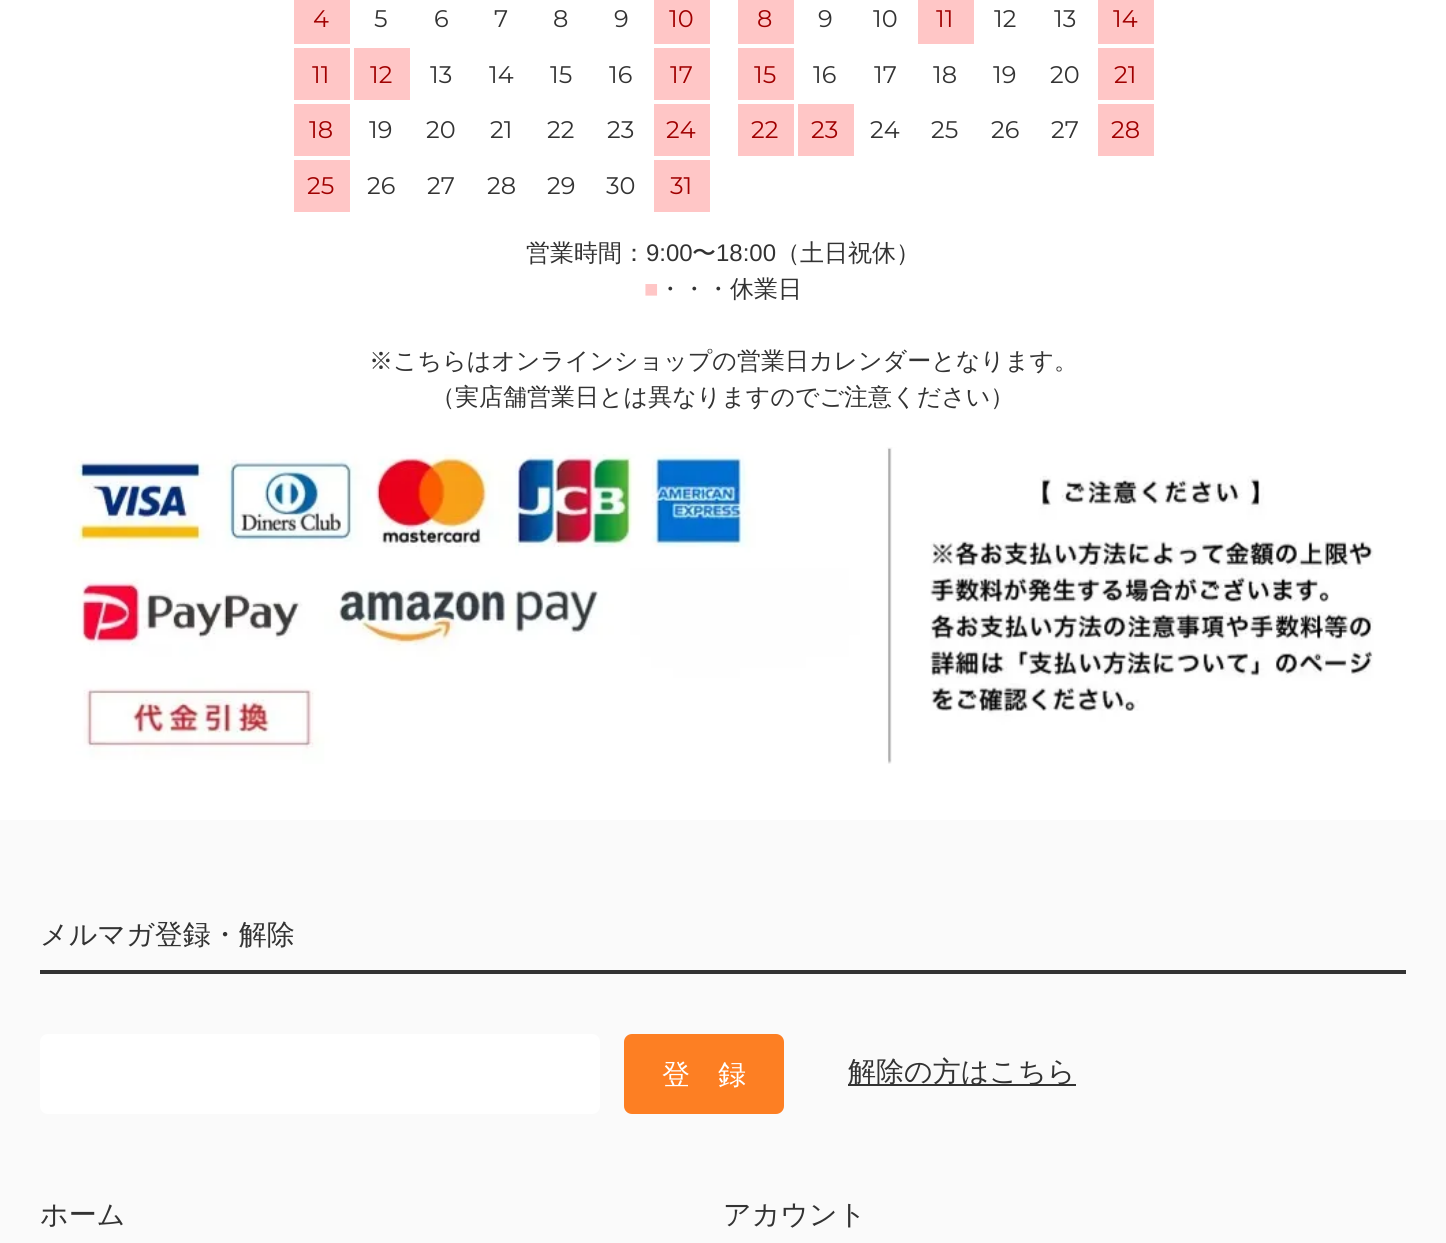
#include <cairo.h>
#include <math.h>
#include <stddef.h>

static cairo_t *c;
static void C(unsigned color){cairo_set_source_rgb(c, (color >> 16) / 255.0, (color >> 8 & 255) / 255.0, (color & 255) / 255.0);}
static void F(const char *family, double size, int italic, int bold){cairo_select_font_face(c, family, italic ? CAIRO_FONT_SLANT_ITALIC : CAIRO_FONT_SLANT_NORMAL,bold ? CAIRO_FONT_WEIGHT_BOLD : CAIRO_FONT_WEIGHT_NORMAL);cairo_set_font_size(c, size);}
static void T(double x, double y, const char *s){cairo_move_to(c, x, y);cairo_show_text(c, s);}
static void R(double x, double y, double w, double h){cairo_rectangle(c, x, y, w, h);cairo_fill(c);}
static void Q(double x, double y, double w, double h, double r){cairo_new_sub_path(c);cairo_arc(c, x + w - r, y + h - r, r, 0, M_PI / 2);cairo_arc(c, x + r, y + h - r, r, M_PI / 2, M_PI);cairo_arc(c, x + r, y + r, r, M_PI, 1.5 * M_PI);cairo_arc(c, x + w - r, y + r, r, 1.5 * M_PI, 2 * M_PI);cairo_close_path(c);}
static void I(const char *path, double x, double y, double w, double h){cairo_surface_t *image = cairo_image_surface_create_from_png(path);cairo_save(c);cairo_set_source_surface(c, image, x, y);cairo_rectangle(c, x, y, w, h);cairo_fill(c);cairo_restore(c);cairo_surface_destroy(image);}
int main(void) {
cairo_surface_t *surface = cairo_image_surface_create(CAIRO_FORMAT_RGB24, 1446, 1243);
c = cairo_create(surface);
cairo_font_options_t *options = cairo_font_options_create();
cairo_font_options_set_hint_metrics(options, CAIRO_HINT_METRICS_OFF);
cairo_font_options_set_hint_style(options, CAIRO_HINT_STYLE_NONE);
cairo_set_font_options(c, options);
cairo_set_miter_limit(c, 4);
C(0xffffff);
cairo_paint(c);
C(0xffc6c6);
R(294,0,56,44);
F("Montserrat",24,0,0);
C(0xa00000);
T(313,27,"4");
C(0x333333);
T(374,27,"5");
T(434,27,"6");
T(494,27,"7");
T(553,27,"8");
T(614,27,"9");
C(0xffc6c6);
R(654,0,56,44);
C(0xa00000);
T(669,27,"10");
C(0xffc6c6);
R(294,48,56,52);
C(0xa00000);
T(312,83,"11");
C(0xffc6c6);
R(354,48,56,52);
C(0xa00000);
T(370,83,"12");
C(0x333333);
T(430,83,"13");
T(489,83,"14");
T(550,83,"15");
T(609,83,"16");
C(0xffc6c6);
R(654,48,56,52);
C(0xa00000);
T(670,83,"17");
C(0xffc6c6);
R(294,104,56,52);
C(0xa00000);
T(309,138,"18");
C(0x333333);
T(369,138,"19");
T(426,138,"20");
T(490,138,"21");
T(547,138,"22");
T(607,138,"23");
C(0xffc6c6);
R(654,104,56,52);
C(0xa00000);
T(666,138,"24");
C(0xffc6c6);
R(294,160,56,52);
C(0xa00000);
T(307,194,"25");
C(0x333333);
T(367,194,"26");
T(427,194,"27");
T(487,194,"28");
T(547,194,"29");
T(606,194,"30");
C(0xffc6c6);
R(654,160,56,52);
C(0xa00000);
T(670,194,"31");
C(0xffc6c6);
R(738,0,56,44);
C(0xa00000);
T(757,27,"8");
C(0x333333);
T(818,27,"9");
T(873,27,"10");
C(0xffc6c6);
R(918,0,56,44);
C(0xa00000);
T(936,27,"11");
C(0x333333);
T(994,27,"12");
T(1054,27,"13");
C(0xffc6c6);
R(1098,0,56,44);
C(0xa00000);
T(1113,27,"14");
C(0xffc6c6);
R(738,48,56,52);
C(0xa00000);
T(754,83,"15");
C(0x333333);
T(813,83,"16");
T(874,83,"17");
T(933,83,"18");
T(993,83,"19");
T(1050,83,"20");
C(0xffc6c6);
R(1098,48,56,52);
C(0xa00000);
T(1114,83,"21");
C(0xffc6c6);
R(738,104,56,52);
C(0xa00000);
T(751,138,"22");
C(0xffc6c6);
R(798,104,56,52);
C(0xa00000);
T(811,138,"23");
C(0x333333);
T(870,138,"24");
T(931,138,"25");
T(991,138,"26");
T(1051,138,"27");
C(0xffc6c6);
R(1098,104,56,52);
C(0xa00000);
T(1111,138,"28");
F("WenQuanYi Zen Hei Medium",24,0,0);
C(0x333333);
T(526,261,"営業時間：");
F("Liberation Sans",24,0,0);
T(646,261,"9:00");
F("WenQuanYi Zen Hei Medium",24,0,0);
T(692,261,"〜");
F("Liberation Sans",24,0,0);
T(716,261,"18:00");
F("WenQuanYi Zen Hei Medium",24,0,0);
T(776,261,"（土日祝休）");
F("Liberation Sans",24,0,0);
C(0xffc6c6);
T(644,297,"■");
F("WenQuanYi Zen Hei Medium",24,0,0);
C(0x333333);
T(658,297,"・・・休業日");
T(369,369,"※こちらはオンラインショップの営業日カレンダーとなります。");
T(431,405,"（実店舗営業日とは異なりますのでご注意ください）");
I("1.png",72,447,1302,317);
C(0xfafafa);
R(0,820,1446,423);
C(0x333333);
R(40,970,1366,4);
F("WenQuanYi Zen Hei Medium",28,0,0);
T(40,944,"メルマガ登録・解除");
C(0xffffff);
Q(40,1034,560,80,8);
cairo_fill(c);
C(0xfd7f23);
Q(624,1034,160,80,8);
cairo_fill(c);
C(0xffffff);
T(662,1084,"登　録");
C(0x333333);
R(848,1084,228,2);
T(848,1081,"解除の方はこちら");
T(40,1224,"ホーム");
T(723,1224,"アカウント");
cairo_surface_write_to_png(surface, "o.png");
cairo_font_options_destroy(options);
cairo_destroy(c);
cairo_surface_destroy(surface);
return 0;
}
